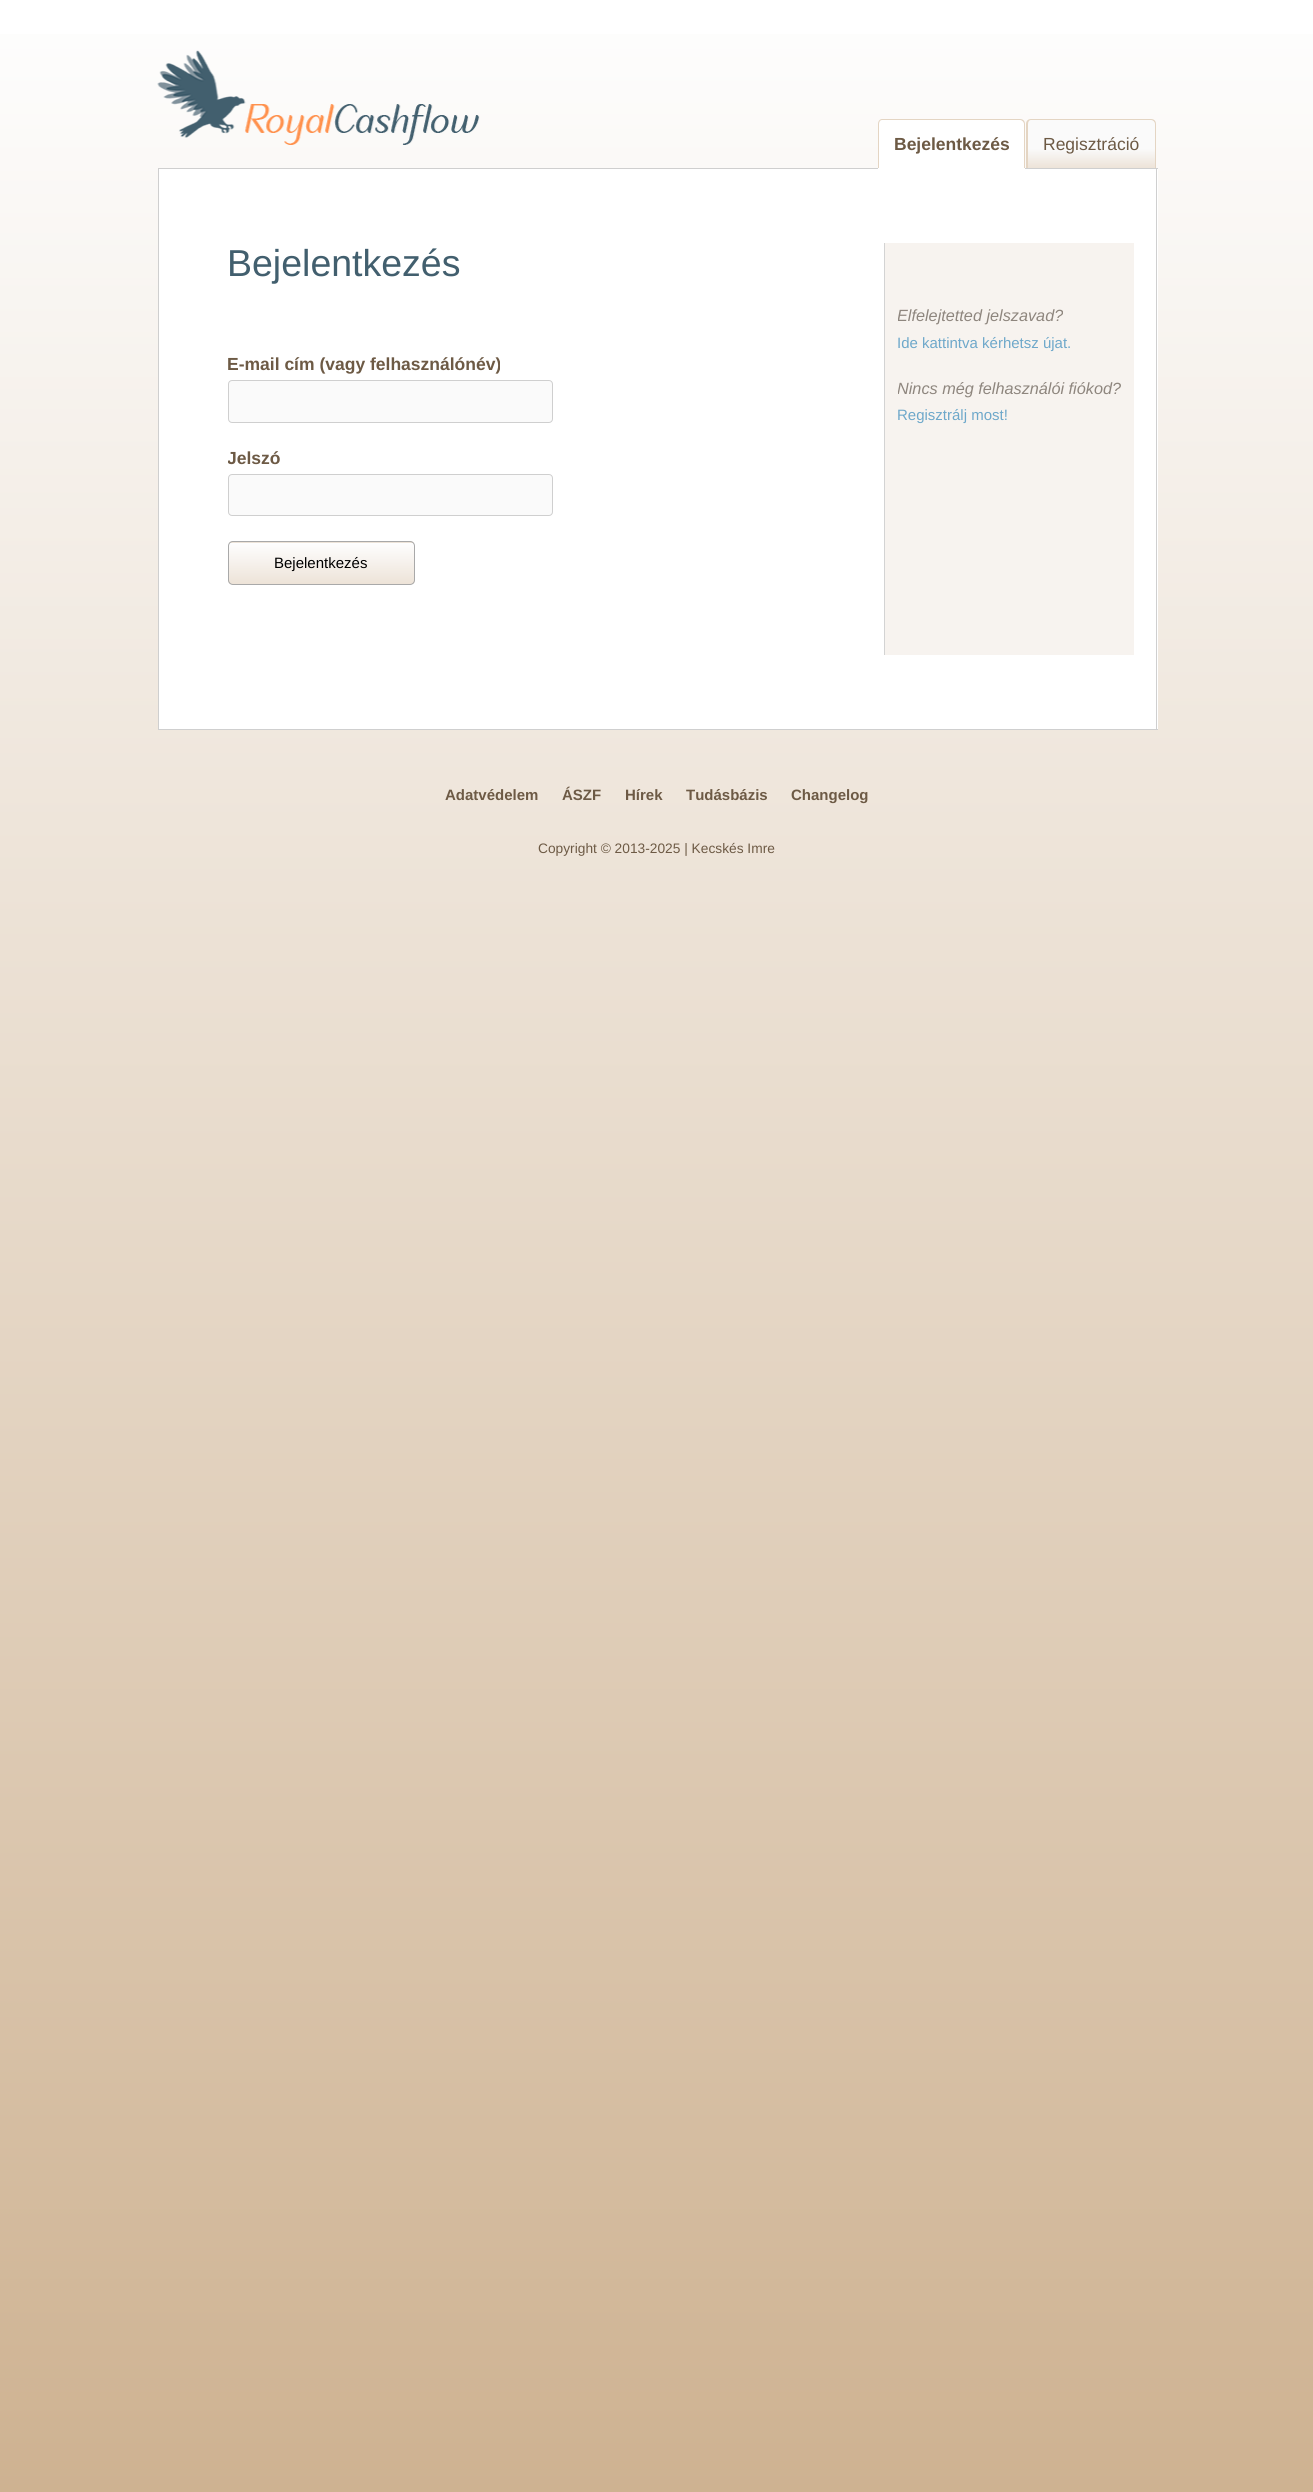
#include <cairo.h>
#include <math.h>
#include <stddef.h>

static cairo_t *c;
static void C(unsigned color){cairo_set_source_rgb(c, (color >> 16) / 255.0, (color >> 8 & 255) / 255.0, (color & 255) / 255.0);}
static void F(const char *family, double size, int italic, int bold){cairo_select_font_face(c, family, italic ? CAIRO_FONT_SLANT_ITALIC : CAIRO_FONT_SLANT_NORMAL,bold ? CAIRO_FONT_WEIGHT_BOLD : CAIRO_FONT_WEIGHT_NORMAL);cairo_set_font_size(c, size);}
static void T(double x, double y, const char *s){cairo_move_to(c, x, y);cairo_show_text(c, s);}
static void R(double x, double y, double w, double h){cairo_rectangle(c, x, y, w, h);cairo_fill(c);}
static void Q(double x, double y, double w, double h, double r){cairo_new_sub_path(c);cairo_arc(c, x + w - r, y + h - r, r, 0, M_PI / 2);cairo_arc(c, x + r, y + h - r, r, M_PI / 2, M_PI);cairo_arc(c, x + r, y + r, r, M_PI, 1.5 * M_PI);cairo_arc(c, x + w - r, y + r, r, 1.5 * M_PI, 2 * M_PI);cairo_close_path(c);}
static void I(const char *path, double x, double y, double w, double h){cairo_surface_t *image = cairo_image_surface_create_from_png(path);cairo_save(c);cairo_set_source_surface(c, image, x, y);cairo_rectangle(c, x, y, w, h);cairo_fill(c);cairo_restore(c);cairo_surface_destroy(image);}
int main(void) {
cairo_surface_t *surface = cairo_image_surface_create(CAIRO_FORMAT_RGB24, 1313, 2492);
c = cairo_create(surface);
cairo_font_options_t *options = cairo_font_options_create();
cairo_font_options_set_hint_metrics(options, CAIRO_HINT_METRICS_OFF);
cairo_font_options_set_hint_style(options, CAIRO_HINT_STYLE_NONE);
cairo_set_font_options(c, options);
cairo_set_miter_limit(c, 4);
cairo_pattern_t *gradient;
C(0xffffff);
cairo_paint(c);
gradient = cairo_pattern_create_linear(657,0,657,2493);
cairo_pattern_add_color_stop_rgba(gradient,0,0.996,0.996,0.996,1);
cairo_pattern_add_color_stop_rgba(gradient,1,0.808,0.698,0.569,1);
cairo_set_source(c,gradient);
cairo_pattern_destroy(gradient);
R(0,34,1313,2458);
I("1.png",157,50,323,95);
C(0xcfcfcf);
R(158,168,1000,1);
C(0xffffff);
R(878,168,147,1);
cairo_new_path(c);
cairo_move_to(c,883,120);
cairo_line_to(c,1020,120);
cairo_curve_to(c,1022,120,1024,122,1024,124);
cairo_line_to(c,1024,168);
cairo_line_to(c,879,168);
cairo_line_to(c,879,124);
cairo_curve_to(c,879,122,881,120,883,120);
cairo_close_path(c);
cairo_fill(c);
C(0xe4d5c3);
cairo_set_fill_rule(c,CAIRO_FILL_RULE_EVEN_ODD);
cairo_new_path(c);
cairo_move_to(c,882,119);
cairo_line_to(c,1020,119);
cairo_curve_to(c,1023,119,1025,121,1025,124);
cairo_line_to(c,1025,168);
cairo_line_to(c,878,168);
cairo_line_to(c,878,124);
cairo_curve_to(c,878,121,880,119,882,119);
cairo_close_path(c);
cairo_move_to(c,882,120);
cairo_line_to(c,1020,120);
cairo_curve_to(c,1022,120,1024,122,1024,124);
cairo_line_to(c,1024,168);
cairo_line_to(c,879,168);
cairo_line_to(c,879,124);
cairo_curve_to(c,879,122,880,120,882,120);
cairo_close_path(c);
cairo_fill(c);
F("Liberation Sans",17.5,0,1);
C(0x6d5a45);
T(894,150,"Bejelentkezés");
gradient = cairo_pattern_create_linear(1091,120,1091,168);
cairo_pattern_add_color_stop_rgba(gradient,.6,0.98,0.98,0.98,1);
cairo_pattern_add_color_stop_rgba(gradient,1,0.929,0.89,0.847,1);
cairo_set_source(c,gradient);
cairo_pattern_destroy(gradient);
cairo_new_path(c);
cairo_move_to(c,1032,120);
cairo_line_to(c,1151,120);
cairo_curve_to(c,1153,120,1155,122,1155,124);
cairo_line_to(c,1155,168);
cairo_line_to(c,1028,168);
cairo_line_to(c,1028,124);
cairo_curve_to(c,1028,122,1030,120,1032,120);
cairo_close_path(c);
cairo_fill(c);
C(0xe4d5c3);
cairo_new_path(c);
cairo_move_to(c,1031,119);
cairo_line_to(c,1151,119);
cairo_curve_to(c,1154,119,1156,121,1156,124);
cairo_line_to(c,1156,168);
cairo_line_to(c,1026,168);
cairo_line_to(c,1026,124);
cairo_curve_to(c,1026,121,1028,119,1031,119);
cairo_close_path(c);
cairo_move_to(c,1031,120);
cairo_line_to(c,1151,120);
cairo_curve_to(c,1153,120,1155,122,1155,124);
cairo_line_to(c,1155,168);
cairo_line_to(c,1028,168);
cairo_line_to(c,1028,124);
cairo_curve_to(c,1028,122,1029,120,1031,120);
cairo_close_path(c);
cairo_fill(c);
F("Liberation Sans",17.5,0,0);
C(0x6d5a45);
T(1043,150,"Regisztráció");
C(0xffffff);
R(159,169,999,560);
C(0xcfcfcf);
R(1156,169,1,561);
R(158,729,1000,1);
R(158,169,1,561);
F("Liberation Sans",37.5,0,0);
C(0x425f6e);
T(227,276,"Bejelentkezés");
F("Liberation Sans",17.5,0,1);
C(0x6d5a45);
T(227,370,"E-mail cím (vagy felhasználónév)");
C(0xfafafa);
Q(228.5,380.5,324,42,3.5);
cairo_fill_preserve(c);
C(0xcfcfcf);
cairo_set_line_width(c,1);
cairo_stroke(c);
cairo_save(c);
cairo_set_fill_rule(c,CAIRO_FILL_RULE_WINDING);
cairo_rectangle(c,228,448,650,68);
cairo_clip(c);
C(0x6d5a45);
T(227,464,"Jelszó");
cairo_restore(c);
C(0xfafafa);
Q(228.5,474.5,324,41,3.5);
cairo_fill_preserve(c);
C(0xcfcfcf);
cairo_stroke(c);
cairo_save(c);
cairo_set_fill_rule(c,CAIRO_FILL_RULE_WINDING);
Q(228,541,187,44,5);
cairo_clip(c);
gradient = cairo_pattern_create_linear(321,501,321,543);
cairo_pattern_add_color_stop_rgba(gradient,0,0.996,0.996,0.996,1);
cairo_pattern_add_color_stop_rgba(gradient,1,0.929,0.89,0.847,1);
cairo_set_source(c,gradient);
cairo_pattern_destroy(gradient);
R(228,541,187,2);
gradient = cairo_pattern_create_linear(321,543,321,584);
cairo_pattern_add_color_stop_rgba(gradient,0,0.996,0.996,0.996,1);
cairo_pattern_add_color_stop_rgba(gradient,1,0.929,0.89,0.847,1);
cairo_set_source(c,gradient);
cairo_pattern_destroy(gradient);
R(228,543,187,41);
cairo_restore(c);
Q(228.5,541.5,186,43,4.5);
C(0xa9a9a9);
cairo_stroke(c);
F("Liberation Sans",15,0,0);
C(0x000000);
T(274,568,"Bejelentkezés");
C(0xf7f3ef);
R(885,243,249,412);
C(0xd3d3d3);
R(884,243,1,412);
cairo_save(c);
cairo_set_fill_rule(c,CAIRO_FILL_RULE_WINDING);
cairo_rectangle(c,898,305,223,48);
cairo_clip(c);
F("Liberation Sans",16.25,1,0);
C(0x8e867e);
T(897,321,"Elfelejtetted jelszavad?");
cairo_restore(c);
C(0x6ea8ca);
T(897,348,"Ide kattintva kérhetsz újat.");
cairo_save(c);
cairo_set_fill_rule(c,CAIRO_FILL_RULE_WINDING);
cairo_rectangle(c,898,378,223,47);
cairo_clip(c);
F("Liberation Sans",16.25,1,0);
C(0x8e867e);
T(897,394,"Nincs még felhasználói fiókod?");
cairo_restore(c);
T(897,420,"Regisztrálj most!");
F("Liberation Sans",15,0,1);
C(0x6d5a45);
T(445,800,"Adatvédelem");
T(562,800,"ÁSZF");
T(625,800,"Hírek");
T(686,800,"Tudásbázis");
T(791,800,"Changelog");
F("Liberation Sans",13.75,0,0);
T(538,853,"Copyright © 2013-2025 | Kecskés Imre");
cairo_surface_write_to_png(surface, "o.png");
cairo_font_options_destroy(options);
cairo_destroy(c);
cairo_surface_destroy(surface);
return 0;
}
